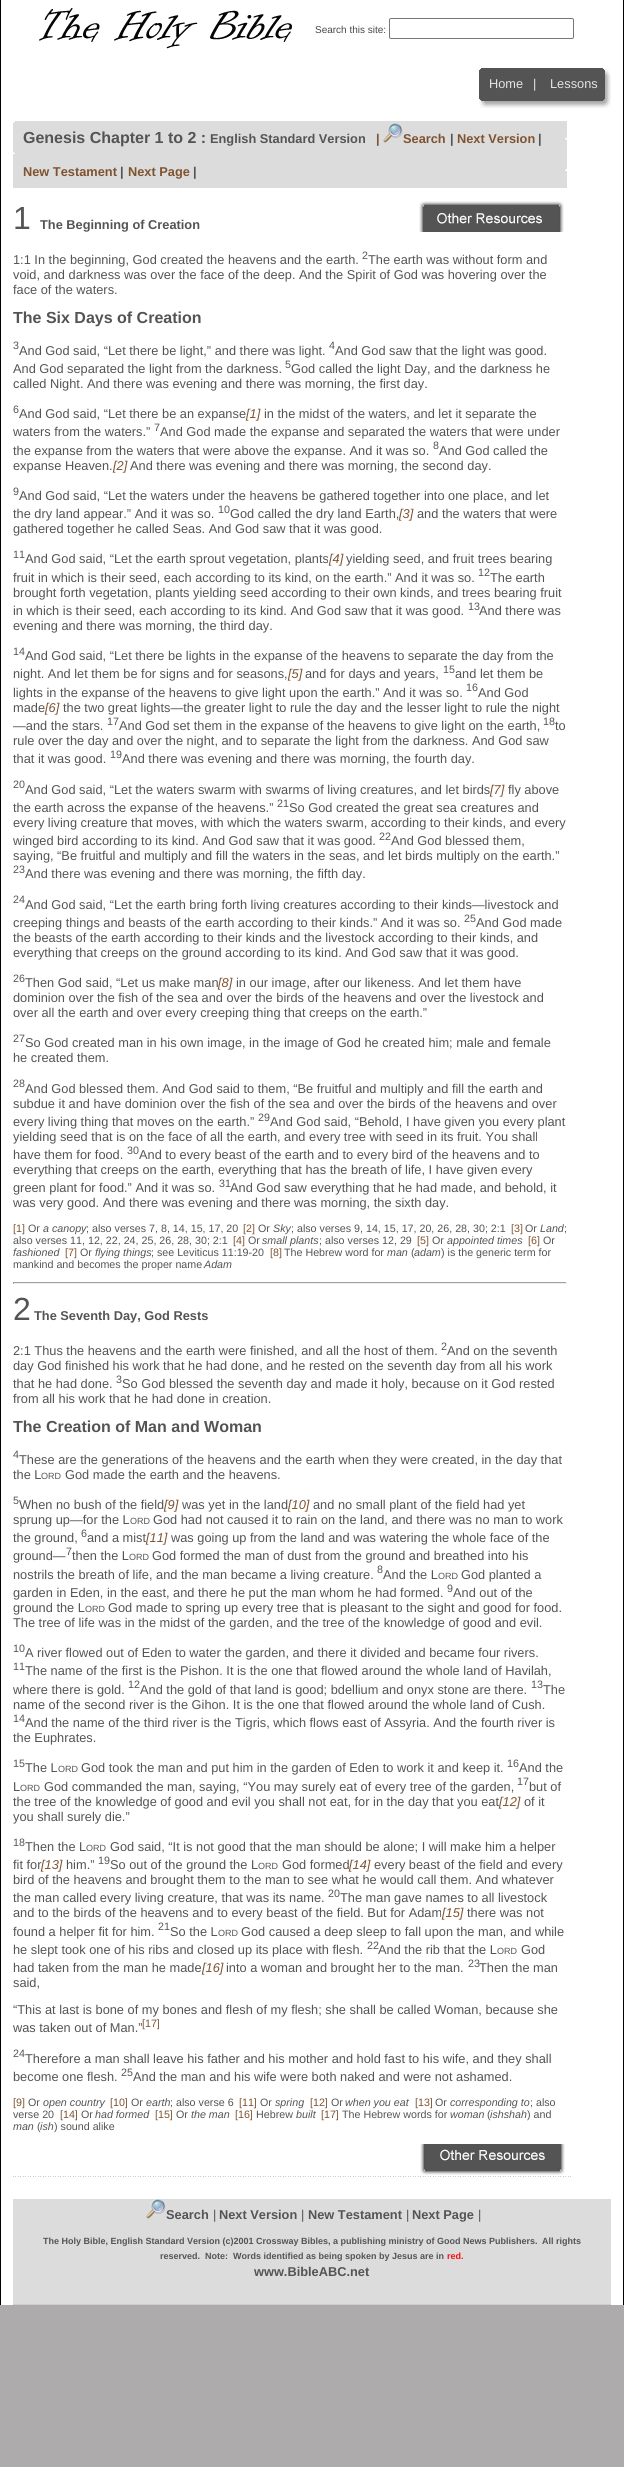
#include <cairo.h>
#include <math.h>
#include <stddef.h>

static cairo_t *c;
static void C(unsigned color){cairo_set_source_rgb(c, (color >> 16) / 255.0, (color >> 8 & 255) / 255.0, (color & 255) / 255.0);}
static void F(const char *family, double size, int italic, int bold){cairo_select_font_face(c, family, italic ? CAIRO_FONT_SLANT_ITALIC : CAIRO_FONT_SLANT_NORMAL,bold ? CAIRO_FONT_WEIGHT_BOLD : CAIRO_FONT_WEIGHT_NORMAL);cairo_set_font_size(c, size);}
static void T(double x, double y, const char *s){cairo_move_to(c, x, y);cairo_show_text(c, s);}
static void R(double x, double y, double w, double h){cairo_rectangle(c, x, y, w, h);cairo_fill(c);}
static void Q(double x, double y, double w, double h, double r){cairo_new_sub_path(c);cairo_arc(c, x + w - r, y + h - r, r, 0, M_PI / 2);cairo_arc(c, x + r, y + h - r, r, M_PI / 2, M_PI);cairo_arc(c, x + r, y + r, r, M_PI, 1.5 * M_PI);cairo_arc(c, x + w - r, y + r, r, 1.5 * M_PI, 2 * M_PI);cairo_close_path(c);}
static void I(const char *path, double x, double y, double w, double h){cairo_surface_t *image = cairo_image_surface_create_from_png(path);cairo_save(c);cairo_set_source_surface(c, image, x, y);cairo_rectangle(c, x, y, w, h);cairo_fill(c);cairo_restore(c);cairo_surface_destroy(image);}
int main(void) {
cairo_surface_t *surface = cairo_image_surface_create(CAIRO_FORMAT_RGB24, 624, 2467);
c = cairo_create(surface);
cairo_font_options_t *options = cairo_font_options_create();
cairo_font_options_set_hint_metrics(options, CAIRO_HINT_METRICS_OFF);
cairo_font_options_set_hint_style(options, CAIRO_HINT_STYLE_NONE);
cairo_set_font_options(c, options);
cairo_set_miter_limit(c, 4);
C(0xadabac);
cairo_paint(c);
C(0xffffff);
R(1,0,622,2305);
C(0x000000);
R(623,0,1,2305);
R(0,0,1,2305);
I("1.png",39,8,253,41);
F("Liberation Sans",10,0,0);
C(0x484848);
T(315,33,"Search this site:");
Q(389.5,18.5,184,20,1.5);
C(0x767676);
cairo_set_line_width(c,1);
cairo_stroke(c);
I("2.png",485,68,118,40);
I("3.png",479,68,6,40);
I("4.png",603,68,8,40);
F("Liberation Sans",12.8,0,0);
C(0xe5e3e3);
T(489,88,"Home");
T(533,88,"|");
T(550,88,"Lessons");
C(0xdcdcdc);
R(13,121,554,67);
I("5.png",13,121,2,33);
I("6.png",565,138,2,33);
F("Liberation Sans",16,0,1);
C(0x545454);
T(23,143,"Genesis Chapter 1 to 2 :");
F("Liberation Sans",12.8,0,1);
T(210,143,"English Standard Version");
C(0x7e5330);
T(376,143,"|");
I("7.png",383,123,20,20);
T(403,143,"Search");
C(0x545454);
T(450,143,"|");
C(0x7e5330);
T(457,143,"Next Version");
C(0x545454);
T(538,143,"|");
C(0x7e5330);
T(23,176,"New Testament");
C(0x545454);
T(120,176,"|");
C(0x7e5330);
T(128,176,"Next Page");
C(0x545454);
T(193,176,"|");
F("Liberation Sans",32,0,0);
T(13,229,"1");
F("Liberation Sans",12.8,0,1);
T(40,229,"The Beginning of Creation");
I("8.png",419,201,145,31);
F("Liberation Sans",12.8,0,0);
T(13,264,"1:1 In the beginning, God created the heavens and the earth.");
F("Liberation Sans",10.7,0,0);
T(362,259,"2");
F("Liberation Sans",12.8,0,0);
T(368,264,"The earth was without form and");
T(13,279,"void, and darkness was over the face of the deep. And the Spirit of God was hovering over the");
T(13,294,"face of the waters.");
F("Liberation Sans",16,0,1);
T(13,323,"The Six Days of Creation");
F("Liberation Sans",10.7,0,0);
T(13,349,"3");
F("Liberation Sans",12.8,0,0);
T(19,355,"And God said, “Let there be light,” and there was light.");
F("Liberation Sans",10.7,0,0);
T(329,349,"4");
F("Liberation Sans",12.8,0,0);
T(335,355,"And God saw that the light was good.");
T(13,373,"And God separated the light from the darkness.");
F("Liberation Sans",10.7,0,0);
T(285,368,"5");
F("Liberation Sans",12.8,0,0);
T(291,373,"God called the light Day, and the darkness he");
T(13,388,"called Night. And there was evening and there was morning, the first day.");
F("Liberation Sans",10.7,0,0);
T(13,413,"6");
F("Liberation Sans",12.8,0,0);
T(19,418,"And God said, “Let there be an expanse");
F("Liberation Sans",12.8,1,0);
C(0x7e5330);
T(246,418,"[1]");
F("Liberation Sans",12.8,0,0);
C(0x545454);
T(264,418,"in the midst of the waters, and let it separate the");
T(13,436,"waters from the waters.”");
F("Liberation Sans",10.7,0,0);
T(154,431,"7");
F("Liberation Sans",12.8,0,0);
T(160,436,"And God made the expanse and separated the waters that were under");
T(13,455,"the expanse from the waters that were above the expanse. And it was so.");
F("Liberation Sans",10.7,0,0);
T(433,449,"8");
F("Liberation Sans",12.8,0,0);
T(439,455,"And God called the");
T(13,470,"expanse Heaven.");
F("Liberation Sans",12.8,1,0);
C(0x7e5330);
T(113,470,"[2]");
F("Liberation Sans",12.8,0,0);
C(0x545454);
T(130,470,"And there was evening and there was morning, the second day.");
F("Liberation Sans",10.7,0,0);
T(13,495,"9");
F("Liberation Sans",12.8,0,0);
T(19,500,"And God said, “Let the waters under the heavens be gathered together into one place, and let");
T(13,518,"the dry land appear.” And it was so.");
F("Liberation Sans",10.7,0,0);
T(218,513,"10");
F("Liberation Sans",12.8,0,0);
T(230,518,"God called the dry land Earth,");
F("Liberation Sans",12.8,1,0);
C(0x7e5330);
T(399,518,"[3]");
F("Liberation Sans",12.8,0,0);
C(0x545454);
T(417,518,"and the waters that were");
T(13,533,"gathered together he called Seas. And God saw that it was good.");
F("Liberation Sans",10.7,0,0);
T(13,558,"11");
F("Liberation Sans",12.8,0,0);
T(25,563,"And God said, “Let the earth sprout vegetation, plants");
F("Liberation Sans",12.8,1,0);
C(0x7e5330);
T(329,563,"[4]");
F("Liberation Sans",12.8,0,0);
C(0x545454);
T(346,563,"yielding seed, and fruit trees bearing");
T(13,582,"fruit in which is their seed, each according to its kind, on the earth.” And it was so.");
F("Liberation Sans",10.7,0,0);
T(478,576,"12");
F("Liberation Sans",12.8,0,0);
T(490,582,"The earth");
T(13,597,"brought forth vegetation, plants yielding seed according to their own kinds, and trees bearing fruit");
T(13,615,"in which is their seed, each according to its kind. And God saw that it was good.");
F("Liberation Sans",10.7,0,0);
T(468,610,"13");
F("Liberation Sans",12.8,0,0);
T(479,615,"And there was");
T(13,630,"evening and there was morning, the third day.");
F("Liberation Sans",10.7,0,0);
T(13,655,"14");
F("Liberation Sans",12.8,0,0);
T(25,660,"And God said, “Let there be lights in the expanse of the heavens to separate the day from the");
T(13,678,"night. And let them be for signs and for seasons,");
F("Liberation Sans",12.8,1,0);
C(0x7e5330);
T(288,678,"[5]");
F("Liberation Sans",12.8,0,0);
C(0x545454);
T(305,678,"and for days and years,");
F("Liberation Sans",10.7,0,0);
T(443,673,"15");
F("Liberation Sans",12.8,0,0);
T(455,678,"and let them be");
T(13,697,"lights in the expanse of the heavens to give light upon the earth.” And it was so.");
F("Liberation Sans",10.7,0,0);
T(466,691,"16");
F("Liberation Sans",12.8,0,0);
T(478,697,"And God");
T(13,712,"made");
F("Liberation Sans",12.8,1,0);
C(0x7e5330);
T(45,712,"[6]");
F("Liberation Sans",12.8,0,0);
C(0x545454);
T(63,712,"the two great lights—the greater light to rule the day and the lesser light to rule the night");
T(13,730,"—and the stars.");
F("Liberation Sans",10.7,0,0);
T(107,725,"17");
F("Liberation Sans",12.8,0,0);
T(119,730,"And God set them in the expanse of the heavens to give light on the earth,");
F("Liberation Sans",10.7,0,0);
T(543,725,"18");
F("Liberation Sans",12.8,0,0);
T(555,730,"to");
T(13,745,"rule over the day and over the night, and to separate the light from the darkness. And God saw");
T(13,763,"that it was good.");
F("Liberation Sans",10.7,0,0);
T(110,758,"19");
F("Liberation Sans",12.8,0,0);
T(122,763,"And there was evening and there was morning, the fourth day.");
F("Liberation Sans",10.7,0,0);
T(13,788,"20");
F("Liberation Sans",12.8,0,0);
T(25,794,"And God said, “Let the waters swarm with swarms of living creatures, and let birds");
F("Liberation Sans",12.8,1,0);
C(0x7e5330);
T(490,794,"[7]");
F("Liberation Sans",12.8,0,0);
C(0x545454);
T(508,794,"fly above");
T(13,812,"the earth across the expanse of the heavens.”");
F("Liberation Sans",10.7,0,0);
T(277,807,"21");
F("Liberation Sans",12.8,0,0);
T(289,812,"So God created the great sea creatures and");
T(13,827,"every living creature that moves, with which the waters swarm, according to their kinds, and every");
T(13,845,"winged bird according to its kind. And God saw that it was good.");
F("Liberation Sans",10.7,0,0);
T(379,840,"22");
F("Liberation Sans",12.8,0,0);
T(391,845,"And God blessed them,");
T(13,860,"saying, “Be fruitful and multiply and fill the waters in the seas, and let birds multiply on the earth.”");
F("Liberation Sans",10.7,0,0);
T(13,873,"23");
F("Liberation Sans",12.8,0,0);
T(25,878,"And there was evening and there was morning, the fifth day.");
F("Liberation Sans",10.7,0,0);
T(13,903,"24");
F("Liberation Sans",12.8,0,0);
T(25,909,"And God said, “Let the earth bring forth living creatures according to their kinds—livestock and");
T(13,927,"creeping things and beasts of the earth according to their kinds.” And it was so.");
F("Liberation Sans",10.7,0,0);
T(464,922,"25");
F("Liberation Sans",12.8,0,0);
T(476,927,"And God made");
T(13,942,"the beasts of the earth according to their kinds and the livestock according to their kinds, and");
T(13,957,"everything that creeps on the ground according to its kind. And God saw that it was good.");
F("Liberation Sans",10.7,0,0);
T(13,982,"26");
F("Liberation Sans",12.8,0,0);
T(25,987,"Then God said, “Let us make man");
F("Liberation Sans",12.8,1,0);
C(0x7e5330);
T(218,987,"[8]");
F("Liberation Sans",12.8,0,0);
C(0x545454);
T(236,987,"in our image, after our likeness. And let them have");
T(13,1002,"dominion over the fish of the sea and over the birds of the heavens and over the livestock and");
T(13,1017,"over all the earth and over every creeping thing that creeps on the earth.”");
F("Liberation Sans",10.7,0,0);
T(13,1042,"27");
F("Liberation Sans",12.8,0,0);
T(25,1047,"So God created man in his own image, in the image of God he created him; male and female");
T(13,1062,"he created them.");
F("Liberation Sans",10.7,0,0);
T(13,1087,"28");
F("Liberation Sans",12.8,0,0);
T(25,1093,"And God blessed them. And God said to them, “Be fruitful and multiply and fill the earth and");
T(13,1108,"subdue it and have dominion over the fish of the sea and over the birds of the heavens and over");
T(13,1126,"every living thing that moves on the earth.”");
F("Liberation Sans",10.7,0,0);
T(258,1121,"29");
F("Liberation Sans",12.8,0,0);
T(270,1126,"And God said, “Behold, I have given you every plant");
T(13,1141,"yielding seed that is on the face of all the earth, and every tree with seed in its fruit. You shall");
T(13,1159,"have them for food.");
F("Liberation Sans",10.7,0,0);
T(127,1154,"30");
F("Liberation Sans",12.8,0,0);
T(139,1159,"And to every beast of the earth and to every bird of the heavens and to");
T(13,1174,"everything that creeps on the earth, everything that has the breath of life, I have given every");
T(13,1192,"green plant for food.” And it was so.");
F("Liberation Sans",10.7,0,0);
T(219,1187,"31");
F("Liberation Sans",12.8,0,0);
T(230,1192,"And God saw everything that he had made, and behold, it");
T(13,1207,"was very good. And there was evening and there was morning, the sixth day.");
F("Liberation Sans",10.7,0,0);
C(0x7e5330);
T(13,1232,"[1]");
C(0x545454);
T(28,1232,"Or");
F("Liberation Sans",10.7,1,0);
T(43,1232,"a canopy");
F("Liberation Sans",10.7,0,0);
T(86,1232,"; also verses 7, 8, 14, 15, 17, 20");
C(0x7e5330);
T(243,1232,"[2]");
C(0x545454);
T(258,1232,"Or");
F("Liberation Sans",10.7,1,0);
T(273,1232,"Sky");
F("Liberation Sans",10.7,0,0);
T(291,1232,"; also verses 9, 14, 15, 17, 20, 26, 28, 30; 2:1");
C(0x7e5330);
T(511,1232,"[3]");
C(0x545454);
T(525,1232,"Or");
F("Liberation Sans",10.7,1,0);
T(540,1232,"Land");
F("Liberation Sans",10.7,0,0);
T(564,1232,";");
T(13,1244,"also verses 11, 12, 22, 24, 25, 26, 28, 30; 2:1");
C(0x7e5330);
T(233,1244,"[4]");
C(0x545454);
T(248,1244,"Or");
F("Liberation Sans",10.7,1,0);
T(262,1244,"small plants");
F("Liberation Sans",10.7,0,0);
T(319,1244,"; also verses 12, 29");
C(0x7e5330);
T(417,1244,"[5]");
C(0x545454);
T(432,1244,"Or");
F("Liberation Sans",10.7,1,0);
T(447,1244,"appointed times");
F("Liberation Sans",10.7,0,0);
C(0x7e5330);
T(528,1244,"[6]");
C(0x545454);
T(543,1244,"Or");
F("Liberation Sans",10.7,1,0);
T(13,1256,"fashioned");
F("Liberation Sans",10.7,0,0);
C(0x7e5330);
T(65,1256,"[7]");
C(0x545454);
T(80,1256,"Or");
F("Liberation Sans",10.7,1,0);
T(95,1256,"flying things");
F("Liberation Sans",10.7,0,0);
T(151,1256,"; see Leviticus 11:19-20");
C(0x7e5330);
T(270,1256,"[8]");
C(0x545454);
T(284,1256,"The Hebrew word for");
F("Liberation Sans",10.7,1,0);
T(387,1256,"man");
F("Liberation Sans",10.7,0,0);
T(411,1256,"(");
F("Liberation Sans",10.7,1,0);
T(414,1256,"adam");
F("Liberation Sans",10.7,0,0);
T(441,1256,") is the generic term for");
T(13,1268,"mankind and becomes the proper name");
F("Liberation Sans",10.7,1,0);
T(204,1268,"Adam");
C(0x9f9f9f);
R(13,1282,554,1);
C(0xeeeeee);
R(566,1282,1,2);
R(13,1283,554,1);
C(0x9f9f9f);
R(13,1282,1,2);
F("Liberation Sans",32,0,0);
C(0x545454);
T(13,1320,"2");
F("Liberation Sans",12.8,0,1);
T(34,1320,"The Seventh Day, God Rests");
F("Liberation Sans",12.8,0,0);
T(13,1355,"2:1 Thus the heavens and the earth were finished, and all the host of them.");
F("Liberation Sans",10.7,0,0);
T(441,1350,"2");
F("Liberation Sans",12.8,0,0);
T(447,1355,"And on the seventh");
T(13,1370,"day God finished his work that he had done, and he rested on the seventh day from all his work");
T(13,1388,"that he had done.");
F("Liberation Sans",10.7,0,0);
T(116,1383,"3");
F("Liberation Sans",12.8,0,0);
T(122,1388,"So God blessed the seventh day and made it holy, because on it God rested");
T(13,1403,"from all his work that he had done in creation.");
F("Liberation Sans",16,0,1);
T(13,1432,"The Creation of Man and Woman");
F("Liberation Sans",10.7,0,0);
T(13,1458,"4");
F("Liberation Sans",12.8,0,0);
T(19,1464,"These are the generations of the heavens and the earth when they were created, in the day that");
T(13,1479,"the L");
F("Liberation Sans",9,0,0);
T(41,1479,"ORD");
F("Liberation Sans",12.8,0,0);
T(65,1479,"God made the earth and the heavens.");
F("Liberation Sans",10.7,0,0);
T(13,1504,"5");
F("Liberation Sans",12.8,0,0);
T(19,1509,"When no bush of the field");
F("Liberation Sans",12.8,1,0);
C(0x7e5330);
T(164,1509,"[9]");
F("Liberation Sans",12.8,0,0);
C(0x545454);
T(182,1509,"was yet in the land");
F("Liberation Sans",12.8,1,0);
C(0x7e5330);
T(288,1509,"[10]");
F("Liberation Sans",12.8,0,0);
C(0x545454);
T(313,1509,"and no small plant of the field had yet");
T(13,1524,"sprung up—for the L");
F("Liberation Sans",9,0,0);
T(130,1524,"ORD");
F("Liberation Sans",12.8,0,0);
T(153,1524,"God had not caused it to rain on the land, and there was no man to work");
T(13,1542,"the ground,");
F("Liberation Sans",10.7,0,0);
T(81,1537,"6");
F("Liberation Sans",12.8,0,0);
T(87,1542,"and a mist");
F("Liberation Sans",12.8,1,0);
C(0x7e5330);
T(146,1542,"[11]");
F("Liberation Sans",12.8,0,0);
C(0x545454);
T(171,1542,"was going up from the land and was watering the whole face of the");
T(13,1560,"ground—");
F("Liberation Sans",10.7,0,0);
T(66,1555,"7");
F("Liberation Sans",12.8,0,0);
T(72,1560,"then the L");
F("Liberation Sans",9,0,0);
T(129,1560,"ORD");
F("Liberation Sans",12.8,0,0);
T(152,1560,"God formed the man of dust from the ground and breathed into his");
T(13,1579,"nostrils the breath of life, and the man became a living creature.");
F("Liberation Sans",10.7,0,0);
T(377,1573,"8");
F("Liberation Sans",12.8,0,0);
T(383,1579,"And the L");
F("Liberation Sans",9,0,0);
T(438,1579,"ORD");
F("Liberation Sans",12.8,0,0);
T(461,1579,"God planted a");
T(13,1597,"garden in Eden, in the east, and there he put the man whom he had formed.");
F("Liberation Sans",10.7,0,0);
T(447,1592,"9");
F("Liberation Sans",12.8,0,0);
T(453,1597,"And out of the");
T(13,1612,"ground the L");
F("Liberation Sans",9,0,0);
T(85,1612,"ORD");
F("Liberation Sans",12.8,0,0);
T(108,1612,"God made to spring up every tree that is pleasant to the sight and good for food.");
T(13,1627,"The tree of life was in the midst of the garden, and the tree of the knowledge of good and evil.");
F("Liberation Sans",10.7,0,0);
T(13,1652,"10");
F("Liberation Sans",12.8,0,0);
T(25,1657,"A river flowed out of Eden to water the garden, and there it divided and became four rivers.");
F("Liberation Sans",10.7,0,0);
T(13,1670,"11");
F("Liberation Sans",12.8,0,0);
T(25,1675,"The name of the first is the Pishon. It is the one that flowed around the whole land of Havilah,");
T(13,1694,"where there is gold.");
F("Liberation Sans",10.7,0,0);
T(128,1688,"12");
F("Liberation Sans",12.8,0,0);
T(140,1694,"And the gold of that land is good; bdellium and onyx stone are there.");
F("Liberation Sans",10.7,0,0);
T(531,1688,"13");
F("Liberation Sans",12.8,0,0);
T(543,1694,"The");
T(13,1709,"name of the second river is the Gihon. It is the one that flowed around the whole land of Cush.");
F("Liberation Sans",10.7,0,0);
T(13,1722,"14");
F("Liberation Sans",12.8,0,0);
T(25,1727,"And the name of the third river is the Tigris, which flows east of Assyria. And the fourth river is");
T(13,1742,"the Euphrates.");
F("Liberation Sans",10.7,0,0);
T(13,1767,"15");
F("Liberation Sans",12.8,0,0);
T(25,1772,"The L");
F("Liberation Sans",9,0,0);
T(58,1772,"ORD");
F("Liberation Sans",12.8,0,0);
T(81,1772,"God took the man and put him in the garden of Eden to work it and keep it.");
F("Liberation Sans",10.7,0,0);
T(507,1767,"16");
F("Liberation Sans",12.8,0,0);
T(519,1772,"And the");
T(13,1791,"L");
F("Liberation Sans",9,0,0);
T(20,1791,"ORD");
F("Liberation Sans",12.8,0,0);
T(44,1791,"God commanded the man, saying, “You may surely eat of every tree of the garden,");
F("Liberation Sans",10.7,0,0);
T(517,1785,"17");
F("Liberation Sans",12.8,0,0);
T(529,1791,"but of");
T(13,1806,"the tree of the knowledge of good and evil you shall not eat, for in the day that you eat");
F("Liberation Sans",12.8,1,0);
C(0x7e5330);
T(499,1806,"[12]");
F("Liberation Sans",12.8,0,0);
C(0x545454);
T(524,1806,"of it");
T(13,1821,"you shall surely die.”");
F("Liberation Sans",10.7,0,0);
T(13,1846,"18");
F("Liberation Sans",12.8,0,0);
T(25,1851,"Then the L");
F("Liberation Sans",9,0,0);
T(86,1851,"ORD");
F("Liberation Sans",12.8,0,0);
T(110,1851,"God said, “It is not good that the man should be alone; I will make him a helper");
T(13,1869,"fit for");
F("Liberation Sans",12.8,1,0);
C(0x7e5330);
T(41,1869,"[13]");
F("Liberation Sans",12.8,0,0);
C(0x545454);
T(66,1869,"him.”");
F("Liberation Sans",10.7,0,0);
T(98,1864,"19");
F("Liberation Sans",12.8,0,0);
T(110,1869,"So out of the ground the L");
F("Liberation Sans",9,0,0);
T(258,1869,"ORD");
F("Liberation Sans",12.8,0,0);
T(282,1869,"God formed");
F("Liberation Sans",12.8,1,0);
C(0x7e5330);
T(349,1869,"[14]");
F("Liberation Sans",12.8,0,0);
C(0x545454);
T(374,1869,"every beast of the field and every");
T(13,1884,"bird of the heavens and brought them to the man to see what he would call them. And whatever");
T(13,1902,"the man called every living creature, that was its name.");
F("Liberation Sans",10.7,0,0);
T(328,1897,"20");
F("Liberation Sans",12.8,0,0);
T(340,1902,"The man gave names to all livestock");
T(13,1917,"and to the birds of the heavens and to every beast of the field. But for Adam");
F("Liberation Sans",12.8,1,0);
C(0x7e5330);
T(442,1917,"[15]");
F("Liberation Sans",12.8,0,0);
C(0x545454);
T(467,1917,"there was not");
T(13,1936,"found a helper fit for him.");
F("Liberation Sans",10.7,0,0);
T(158,1930,"21");
F("Liberation Sans",12.8,0,0);
T(170,1936,"So the L");
F("Liberation Sans",9,0,0);
T(218,1936,"ORD");
F("Liberation Sans",12.8,0,0);
T(241,1936,"God caused a deep sleep to fall upon the man, and while");
T(13,1954,"he slept took one of his ribs and closed up its place with flesh.");
F("Liberation Sans",10.7,0,0);
T(367,1949,"22");
F("Liberation Sans",12.8,0,0);
T(378,1954,"And the rib that the L");
F("Liberation Sans",9,0,0);
T(497,1954,"ORD");
F("Liberation Sans",12.8,0,0);
T(521,1954,"God");
T(13,1972,"had taken from the man he made");
F("Liberation Sans",12.8,1,0);
C(0x7e5330);
T(202,1972,"[16]");
F("Liberation Sans",12.8,0,0);
C(0x545454);
T(226,1972,"into a woman and brought her to the man.");
F("Liberation Sans",10.7,0,0);
T(468,1967,"23");
F("Liberation Sans",12.8,0,0);
T(479,1972,"Then the man");
T(13,1987,"said,");
T(13,2014,"“This at last is bone of my bones and flesh of my flesh; she shall be called Woman, because she");
T(13,2032,"was taken out of Man.”");
F("Liberation Sans",10.7,0,0);
C(0x7e5330);
T(142,2027,"[17]");
C(0x545454);
T(13,2057,"24");
F("Liberation Sans",12.8,0,0);
T(25,2063,"Therefore a man shall leave his father and his mother and hold fast to his wife, and they shall");
T(13,2081,"become one flesh.");
F("Liberation Sans",10.7,0,0);
T(121,2076,"25");
F("Liberation Sans",12.8,0,0);
T(133,2081,"And the man and his wife were both naked and were not ashamed.");
F("Liberation Sans",10.7,0,0);
C(0x7e5330);
T(13,2106,"[9]");
C(0x545454);
T(28,2106,"Or");
F("Liberation Sans",10.7,1,0);
T(43,2106,"open country");
F("Liberation Sans",10.7,0,0);
C(0x7e5330);
T(110,2106,"[10]");
C(0x545454);
T(131,2106,"Or");
F("Liberation Sans",10.7,1,0);
T(146,2106,"earth");
F("Liberation Sans",10.7,0,0);
T(170,2106,"; also verse 6");
C(0x7e5330);
T(239,2106,"[11]");
C(0x545454);
T(260,2106,"Or");
F("Liberation Sans",10.7,1,0);
T(275,2106,"spring");
F("Liberation Sans",10.7,0,0);
C(0x7e5330);
T(310,2106,"[12]");
C(0x545454);
T(331,2106,"Or");
F("Liberation Sans",10.7,1,0);
T(345,2106,"when you eat");
F("Liberation Sans",10.7,0,0);
C(0x7e5330);
T(415,2106,"[13]");
C(0x545454);
T(435,2106,"Or");
F("Liberation Sans",10.7,1,0);
T(450,2106,"corresponding to");
F("Liberation Sans",10.7,0,0);
T(530,2106,"; also");
T(13,2118,"verse 20");
C(0x7e5330);
T(60,2118,"[14]");
C(0x545454);
T(81,2118,"Or");
F("Liberation Sans",10.7,1,0);
T(95,2118,"had formed");
F("Liberation Sans",10.7,0,0);
C(0x7e5330);
T(155,2118,"[15]");
C(0x545454);
T(176,2118,"Or");
F("Liberation Sans",10.7,1,0);
T(191,2118,"the man");
F("Liberation Sans",10.7,0,0);
C(0x7e5330);
T(235,2118,"[16]");
C(0x545454);
T(256,2118,"Hebrew");
F("Liberation Sans",10.7,1,0);
T(296,2118,"built");
F("Liberation Sans",10.7,0,0);
C(0x7e5330);
T(321,2118,"[17]");
C(0x545454);
T(342,2118,"The Hebrew words for");
F("Liberation Sans",10.7,1,0);
T(450,2118,"woman");
F("Liberation Sans",10.7,0,0);
T(487,2118,"(");
F("Liberation Sans",10.7,1,0);
T(490,2118,"ishshah");
F("Liberation Sans",10.7,0,0);
T(527,2118,") and");
F("Liberation Sans",10.7,1,0);
T(13,2130,"man");
F("Liberation Sans",10.7,0,0);
T(37,2130,"(");
F("Liberation Sans",10.7,1,0);
T(40,2130,"ish");
F("Liberation Sans",10.7,0,0);
T(54,2130,") sound alike");
I("9.png",420,2144,145,31);
I("10.png",13,2176,558,1);
C(0xcccccc);
R(13,2304,598,1);
C(0xdcdcdc);
R(13,2199,598,105);
I("7.png",146,2199,20,20);
F("Liberation Sans",12.8,0,1);
C(0x545454);
T(166,2219,"Search");
F("Liberation Sans",12.8,0,0);
T(213,2219,"|");
F("Liberation Sans",12.8,0,1);
T(219,2219,"Next Version");
F("Liberation Sans",12.8,0,0);
T(301,2219,"|");
F("Liberation Sans",12.8,0,1);
T(308,2219,"New Testament");
F("Liberation Sans",12.8,0,0);
T(406,2219,"|");
F("Liberation Sans",12.8,0,1);
T(412,2219,"Next Page");
F("Liberation Sans",12.8,0,0);
T(478,2219,"|");
F("Liberation Sans",9,0,1);
T(43,2244,"The Holy Bible, English Standard Version (c)2001 Crossway Bibles, a publishing ministry of");
T(437,2244,"Good News Publishers.");
T(542,2244,"All rights");
T(160,2259,"reserved.  Note:  Words identified as being spoken by Jesus are in");
C(0xf80f0f);
T(447,2259,"red.");
F("Liberation Sans",12.8,0,1);
C(0x545454);
T(254,2276,"www.BibleABC.net");
cairo_surface_write_to_png(surface, "o.png");
cairo_font_options_destroy(options);
cairo_destroy(c);
cairo_surface_destroy(surface);
return 0;
}
